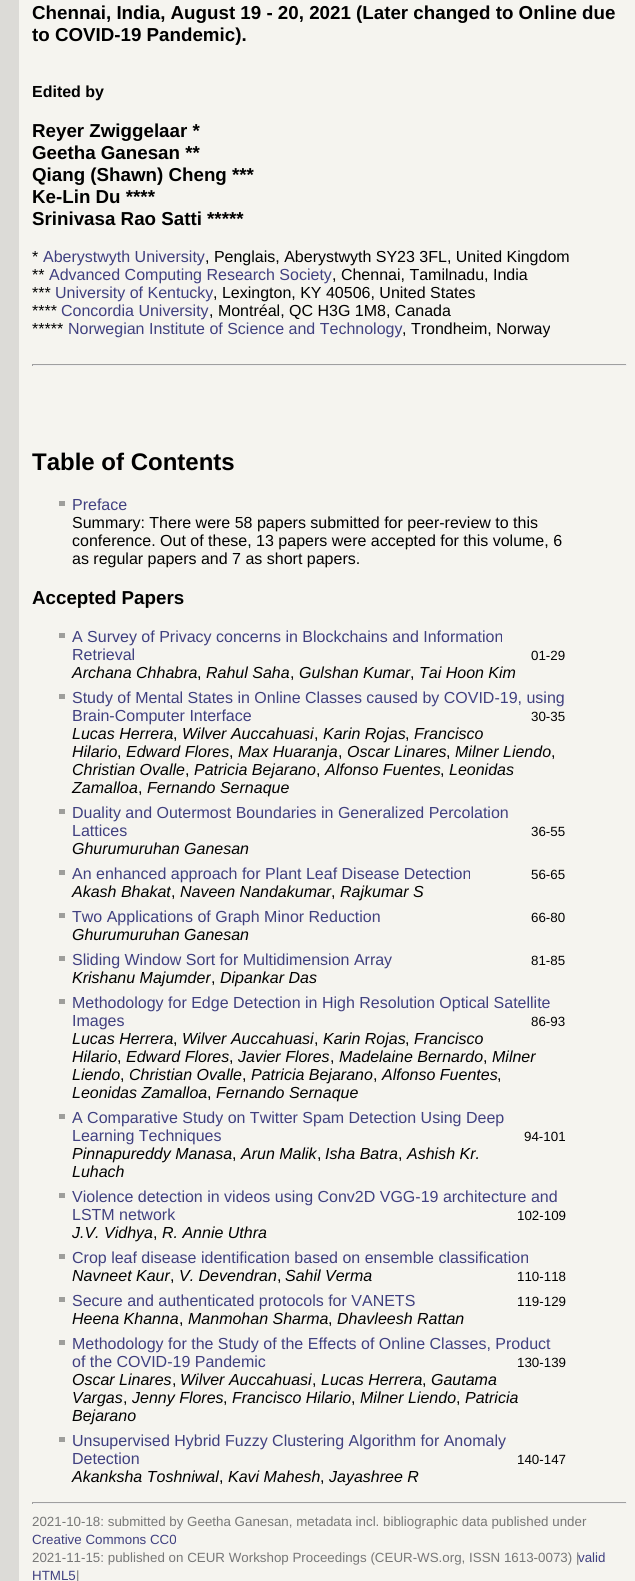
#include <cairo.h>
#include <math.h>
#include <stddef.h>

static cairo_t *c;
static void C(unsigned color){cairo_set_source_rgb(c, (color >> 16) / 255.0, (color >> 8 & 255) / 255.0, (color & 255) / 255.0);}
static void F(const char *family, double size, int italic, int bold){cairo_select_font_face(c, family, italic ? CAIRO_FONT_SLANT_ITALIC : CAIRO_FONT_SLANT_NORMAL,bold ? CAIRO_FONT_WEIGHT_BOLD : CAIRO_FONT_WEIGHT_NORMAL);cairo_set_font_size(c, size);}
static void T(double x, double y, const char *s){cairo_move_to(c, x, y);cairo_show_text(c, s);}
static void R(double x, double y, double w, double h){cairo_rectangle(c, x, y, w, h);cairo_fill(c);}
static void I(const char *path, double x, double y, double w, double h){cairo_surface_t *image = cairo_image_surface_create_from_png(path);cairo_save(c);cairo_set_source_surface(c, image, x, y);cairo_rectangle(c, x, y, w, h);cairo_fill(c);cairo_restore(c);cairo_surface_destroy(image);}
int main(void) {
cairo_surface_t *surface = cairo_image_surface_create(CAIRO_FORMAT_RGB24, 635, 1581);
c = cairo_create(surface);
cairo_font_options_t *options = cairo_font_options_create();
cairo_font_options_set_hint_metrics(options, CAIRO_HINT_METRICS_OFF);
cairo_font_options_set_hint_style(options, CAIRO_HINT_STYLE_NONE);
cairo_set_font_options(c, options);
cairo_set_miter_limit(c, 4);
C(0xffffff);
cairo_paint(c);
I("1.png",0,0,635,1581);
F("Liberation Sans",18.75,0,1);
C(0x000000);
T(32,19,"Chennai, India, August 19 - 20, 2021 (Later changed to Online due");
T(32,41,"to COVID-19 Pandemic).");
F("Liberation Sans",16,0,1);
T(32,97,"Edited by");
F("Liberation Sans",18.75,0,1);
T(32,137,"Reyer Zwiggelaar *");
T(32,159,"Geetha Ganesan **");
T(32,181,"Qiang (Shawn) Cheng ***");
T(32,203,"Ke-Lin Du ****");
T(32,225,"Srinivasa Rao Satti *****");
F("Liberation Sans",16,0,0);
T(32,262,"*");
C(0x404080);
T(43,262,"Aberystwyth University");
C(0x000000);
T(205,262,", Penglais, Aberystwyth SY23 3FL, United Kingdom");
T(32,280,"**");
C(0x404080);
T(49,280,"Advanced Computing Research Society");
C(0x000000);
T(332,280,", Chennai, Tamilnadu, India");
T(32,298,"***");
C(0x404080);
T(55,298,"University of Kentucky");
C(0x000000);
T(213,298,", Lexington, KY 40506, United States");
T(32,316,"****");
C(0x404080);
T(61,316,"Concordia University");
C(0x000000);
T(209,316,", Montréal, QC H3G 1M8, Canada");
T(32,334,"*****");
C(0x404080);
T(68,334,"Norwegian Institute of Science and Technology");
C(0x000000);
T(402,334,", Trondheim, Norway");
C(0x9f9f9f);
R(32,364,595,1);
C(0xeeeeee);
R(626,364,1,2);
R(32,365,595,1);
C(0x9f9f9f);
R(32,364,1,2);
F("Liberation Sans",24,0,1);
C(0x000000);
T(32,470,"Table of Contents");
C(0x9e9e9b);
R(59,501,6,5);
F("Liberation Sans",16,0,0);
C(0x404080);
T(72,510,"Preface");
C(0x000000);
T(72,528,"Summary: There were 58 papers submitted for peer-review to this");
T(72,546,"conference. Out of these, 13 papers were accepted for this volume, 6");
T(72,564,"as regular papers and 7 as short papers.");
F("Liberation Sans",18.75,0,1);
T(32,604,"Accepted Papers");
C(0x9e9e9b);
R(59,633,6,5);
F("Liberation Sans",16,0,0);
C(0x404080);
T(72,642,"A Survey of Privacy concerns in Blockchains and Information");
T(72,660,"Retrieval");
F("Liberation Sans",13.35,0,0);
C(0x000000);
T(531,660,"01-29");
F("Liberation Sans",16,1,0);
T(72,678,"Archana Chhabra");
F("Liberation Sans",16,0,0);
T(197,678,",");
F("Liberation Sans",16,1,0);
T(206,678,"Rahul Saha");
F("Liberation Sans",16,0,0);
T(290,678,",");
F("Liberation Sans",16,1,0);
T(299,678,"Gulshan Kumar");
F("Liberation Sans",16,0,0);
T(410,678,",");
F("Liberation Sans",16,1,0);
T(419,678,"Tai Hoon Kim");
C(0x9e9e9b);
R(59,694,6,5);
F("Liberation Sans",16,0,0);
C(0x404080);
T(72,703,"Study of Mental States in Online Classes caused by COVID-19, using");
T(72,721,"Brain-Computer Interface");
F("Liberation Sans",13.35,0,0);
C(0x000000);
T(531,721,"30-35");
F("Liberation Sans",16,1,0);
T(72,739,"Lucas Herrera");
F("Liberation Sans",16,0,0);
T(173,739,",");
F("Liberation Sans",16,1,0);
T(182,739,"Wilver Auccahuasi");
F("Liberation Sans",16,0,0);
T(314,739,",");
F("Liberation Sans",16,1,0);
T(323,739,"Karin Rojas");
F("Liberation Sans",16,0,0);
T(405,739,",");
F("Liberation Sans",16,1,0);
T(414,739,"Francisco");
T(72,757,"Hilario");
F("Liberation Sans",16,0,0);
T(117,757,",");
F("Liberation Sans",16,1,0);
T(126,757,"Edward Flores");
F("Liberation Sans",16,0,0);
T(229,757,",");
F("Liberation Sans",16,1,0);
T(238,757,"Max Huaranja");
F("Liberation Sans",16,0,0);
T(338,757,",");
F("Liberation Sans",16,1,0);
T(347,757,"Oscar Linares");
F("Liberation Sans",16,0,0);
T(446,757,",");
F("Liberation Sans",16,1,0);
T(455,757,"Milner Liendo");
F("Liberation Sans",16,0,0);
T(551,757,",");
F("Liberation Sans",16,1,0);
T(72,775,"Christian Ovalle");
F("Liberation Sans",16,0,0);
T(185,775,",");
F("Liberation Sans",16,1,0);
T(194,775,"Patricia Bejarano");
F("Liberation Sans",16,0,0);
T(316,775,",");
F("Liberation Sans",16,1,0);
T(325,775,"Alfonso Fuentes");
F("Liberation Sans",16,0,0);
T(440,775,",");
F("Liberation Sans",16,1,0);
T(449,775,"Leonidas");
T(72,793,"Zamalloa");
F("Liberation Sans",16,0,0);
T(138,793,",");
F("Liberation Sans",16,1,0);
T(147,793,"Fernando Sernaque");
C(0x9e9e9b);
R(59,809,6,5);
F("Liberation Sans",16,0,0);
C(0x404080);
T(72,818,"Duality and Outermost Boundaries in Generalized Percolation");
T(72,836,"Lattices");
F("Liberation Sans",13.35,0,0);
C(0x000000);
T(531,836,"36-55");
F("Liberation Sans",16,1,0);
T(72,854,"Ghurumuruhan Ganesan");
C(0x9e9e9b);
R(59,870,6,5);
F("Liberation Sans",16,0,0);
C(0x404080);
T(72,879,"An enhanced approach for Plant Leaf Disease Detection");
F("Liberation Sans",13.35,0,0);
C(0x000000);
T(531,879,"56-65");
F("Liberation Sans",16,1,0);
T(72,897,"Akash Bhakat");
F("Liberation Sans",16,0,0);
T(171,897,",");
F("Liberation Sans",16,1,0);
T(180,897,"Naveen Nandakumar");
F("Liberation Sans",16,0,0);
T(331,897,",");
F("Liberation Sans",16,1,0);
T(340,897,"Rajkumar S");
C(0x9e9e9b);
R(59,913,6,5);
F("Liberation Sans",16,0,0);
C(0x404080);
T(72,922,"Two Applications of Graph Minor Reduction");
F("Liberation Sans",13.35,0,0);
C(0x000000);
T(531,922,"66-80");
F("Liberation Sans",16,1,0);
T(72,940,"Ghurumuruhan Ganesan");
C(0x9e9e9b);
R(59,956,6,5);
F("Liberation Sans",16,0,0);
C(0x404080);
T(72,965,"Sliding Window Sort for Multidimension Array");
F("Liberation Sans",13.35,0,0);
C(0x000000);
T(531,965,"81-85");
F("Liberation Sans",16,1,0);
T(72,983,"Krishanu Majumder");
F("Liberation Sans",16,0,0);
T(211,983,",");
F("Liberation Sans",16,1,0);
T(220,983,"Dipankar Das");
C(0x9e9e9b);
R(59,999,6,5);
F("Liberation Sans",16,0,0);
C(0x404080);
T(72,1008,"Methodology for Edge Detection in High Resolution Optical Satellite");
T(72,1026,"Images");
F("Liberation Sans",13.35,0,0);
C(0x000000);
T(531,1026,"86-93");
F("Liberation Sans",16,1,0);
T(72,1044,"Lucas Herrera");
F("Liberation Sans",16,0,0);
T(173,1044,",");
F("Liberation Sans",16,1,0);
T(182,1044,"Wilver Auccahuasi");
F("Liberation Sans",16,0,0);
T(314,1044,",");
F("Liberation Sans",16,1,0);
T(323,1044,"Karin Rojas");
F("Liberation Sans",16,0,0);
T(405,1044,",");
F("Liberation Sans",16,1,0);
T(414,1044,"Francisco");
T(72,1062,"Hilario");
F("Liberation Sans",16,0,0);
T(117,1062,",");
F("Liberation Sans",16,1,0);
T(126,1062,"Edward Flores");
F("Liberation Sans",16,0,0);
T(229,1062,",");
F("Liberation Sans",16,1,0);
T(238,1062,"Javier Flores");
F("Liberation Sans",16,0,0);
T(330,1062,",");
F("Liberation Sans",16,1,0);
T(339,1062,"Madelaine Bernardo");
F("Liberation Sans",16,0,0);
T(483,1062,",");
F("Liberation Sans",16,1,0);
T(492,1062,"Milner");
T(72,1080,"Liendo");
F("Liberation Sans",16,0,0);
T(120,1080,",");
F("Liberation Sans",16,1,0);
T(129,1080,"Christian Ovalle");
F("Liberation Sans",16,0,0);
T(242,1080,",");
F("Liberation Sans",16,1,0);
T(251,1080,"Patricia Bejarano");
F("Liberation Sans",16,0,0);
T(373,1080,",");
F("Liberation Sans",16,1,0);
T(382,1080,"Alfonso Fuentes");
F("Liberation Sans",16,0,0);
T(497,1080,",");
F("Liberation Sans",16,1,0);
T(72,1098,"Leonidas Zamalloa");
F("Liberation Sans",16,0,0);
T(207,1098,",");
F("Liberation Sans",16,1,0);
T(216,1098,"Fernando Sernaque");
C(0x9e9e9b);
R(59,1114,6,5);
F("Liberation Sans",16,0,0);
C(0x404080);
T(72,1123,"A Comparative Study on Twitter Spam Detection Using Deep");
T(72,1141,"Learning Techniques");
F("Liberation Sans",13.35,0,0);
C(0x000000);
T(524,1141,"94-101");
F("Liberation Sans",16,1,0);
T(72,1159,"Pinnapureddy Manasa");
F("Liberation Sans",16,0,0);
T(232,1159,",");
F("Liberation Sans",16,1,0);
T(241,1159,"Arun Malik");
F("Liberation Sans",16,0,0);
T(317,1159,",");
F("Liberation Sans",16,1,0);
T(325,1159,"Isha Batra");
F("Liberation Sans",16,0,0);
T(398,1159,",");
F("Liberation Sans",16,1,0);
T(407,1159,"Ashish Kr.");
T(72,1177,"Luhach");
C(0x9e9e9b);
R(59,1193,6,5);
F("Liberation Sans",16,0,0);
C(0x404080);
T(72,1202,"Violence detection in videos using Conv2D VGG-19 architecture and");
T(72,1220,"LSTM network");
F("Liberation Sans",13.35,0,0);
C(0x000000);
T(517,1220,"102-109");
F("Liberation Sans",16,1,0);
T(72,1238,"J.V. Vidhya");
F("Liberation Sans",16,0,0);
T(153,1238,",");
F("Liberation Sans",16,1,0);
T(162,1238,"R. Annie Uthra");
C(0x9e9e9b);
R(59,1254,6,5);
F("Liberation Sans",16,0,0);
C(0x404080);
T(72,1263,"Crop leaf disease identification based on ensemble classification");
F("Liberation Sans",16,1,0);
C(0x000000);
T(72,1281,"Navneet Kaur");
F("Liberation Sans",16,0,0);
T(170,1281,",");
F("Liberation Sans",16,1,0);
T(179,1281,"V. Devendran");
F("Liberation Sans",16,0,0);
T(277,1281,",");
F("Liberation Sans",16,1,0);
T(285,1281,"Sahil Verma");
F("Liberation Sans",13.35,0,0);
T(517,1281,"110-118");
C(0x9e9e9b);
R(59,1297,6,5);
F("Liberation Sans",16,0,0);
C(0x404080);
T(72,1306,"Secure and authenticated protocols for VANETS");
F("Liberation Sans",13.35,0,0);
C(0x000000);
T(517,1306,"119-129");
F("Liberation Sans",16,1,0);
T(72,1324,"Heena Khanna");
F("Liberation Sans",16,0,0);
T(179,1324,",");
F("Liberation Sans",16,1,0);
T(188,1324,"Manmohan Sharma");
F("Liberation Sans",16,0,0);
T(328,1324,",");
F("Liberation Sans",16,1,0);
T(337,1324,"Dhavleesh Rattan");
C(0x9e9e9b);
R(59,1340,6,5);
F("Liberation Sans",16,0,0);
C(0x404080);
T(72,1349,"Methodology for the Study of the Effects of Online Classes, Product");
T(72,1367,"of the COVID-19 Pandemic");
F("Liberation Sans",13.35,0,0);
C(0x000000);
T(517,1367,"130-139");
F("Liberation Sans",16,1,0);
T(72,1385,"Oscar Linares");
F("Liberation Sans",16,0,0);
T(172,1385,",");
F("Liberation Sans",16,1,0);
T(180,1385,"Wilver Auccahuasi");
F("Liberation Sans",16,0,0);
T(312,1385,",");
F("Liberation Sans",16,1,0);
T(321,1385,"Lucas Herrera");
F("Liberation Sans",16,0,0);
T(422,1385,",");
F("Liberation Sans",16,1,0);
T(431,1385,"Gautama");
T(72,1403,"Vargas");
F("Liberation Sans",16,0,0);
T(123,1403,",");
F("Liberation Sans",16,1,0);
T(132,1403,"Jenny Flores");
F("Liberation Sans",16,0,0);
T(223,1403,",");
F("Liberation Sans",16,1,0);
T(232,1403,"Francisco Hilario");
F("Liberation Sans",16,0,0);
T(351,1403,",");
F("Liberation Sans",16,1,0);
T(360,1403,"Milner Liendo");
F("Liberation Sans",16,0,0);
T(456,1403,",");
F("Liberation Sans",16,1,0);
T(465,1403,"Patricia");
T(72,1421,"Bejarano");
C(0x9e9e9b);
R(59,1437,6,5);
F("Liberation Sans",16,0,0);
C(0x404080);
T(72,1446,"Unsupervised Hybrid Fuzzy Clustering Algorithm for Anomaly");
T(72,1464,"Detection");
F("Liberation Sans",13.35,0,0);
C(0x000000);
T(517,1464,"140-147");
F("Liberation Sans",16,1,0);
T(72,1482,"Akanksha Toshniwal");
F("Liberation Sans",16,0,0);
T(219,1482,",");
F("Liberation Sans",16,1,0);
T(228,1482,"Kavi Mahesh");
F("Liberation Sans",16,0,0);
T(320,1482,",");
F("Liberation Sans",16,1,0);
T(329,1482,"Jayashree R");
C(0x9f9f9f);
R(32,1502,595,1);
C(0xeeeeee);
R(626,1502,1,2);
R(32,1503,595,1);
C(0x9f9f9f);
R(32,1502,1,2);
F("Liberation Sans",13.35,0,0);
C(0x777777);
T(32,1526,"2021-10-18: submitted by Geetha Ganesan, metadata incl. bibliographic data published under");
C(0x404080);
T(32,1544,"Creative Commons CC0");
C(0x777777);
T(32,1562,"2021-11-15: published on CEUR Workshop Proceedings (CEUR-WS.org, ISSN 1613-0073) |");
C(0x404080);
T(578,1562,"valid");
T(32,1580,"HTML5");
C(0x777777);
T(76,1580,"|");
cairo_surface_write_to_png(surface, "o.png");
cairo_font_options_destroy(options);
cairo_destroy(c);
cairo_surface_destroy(surface);
return 0;
}
